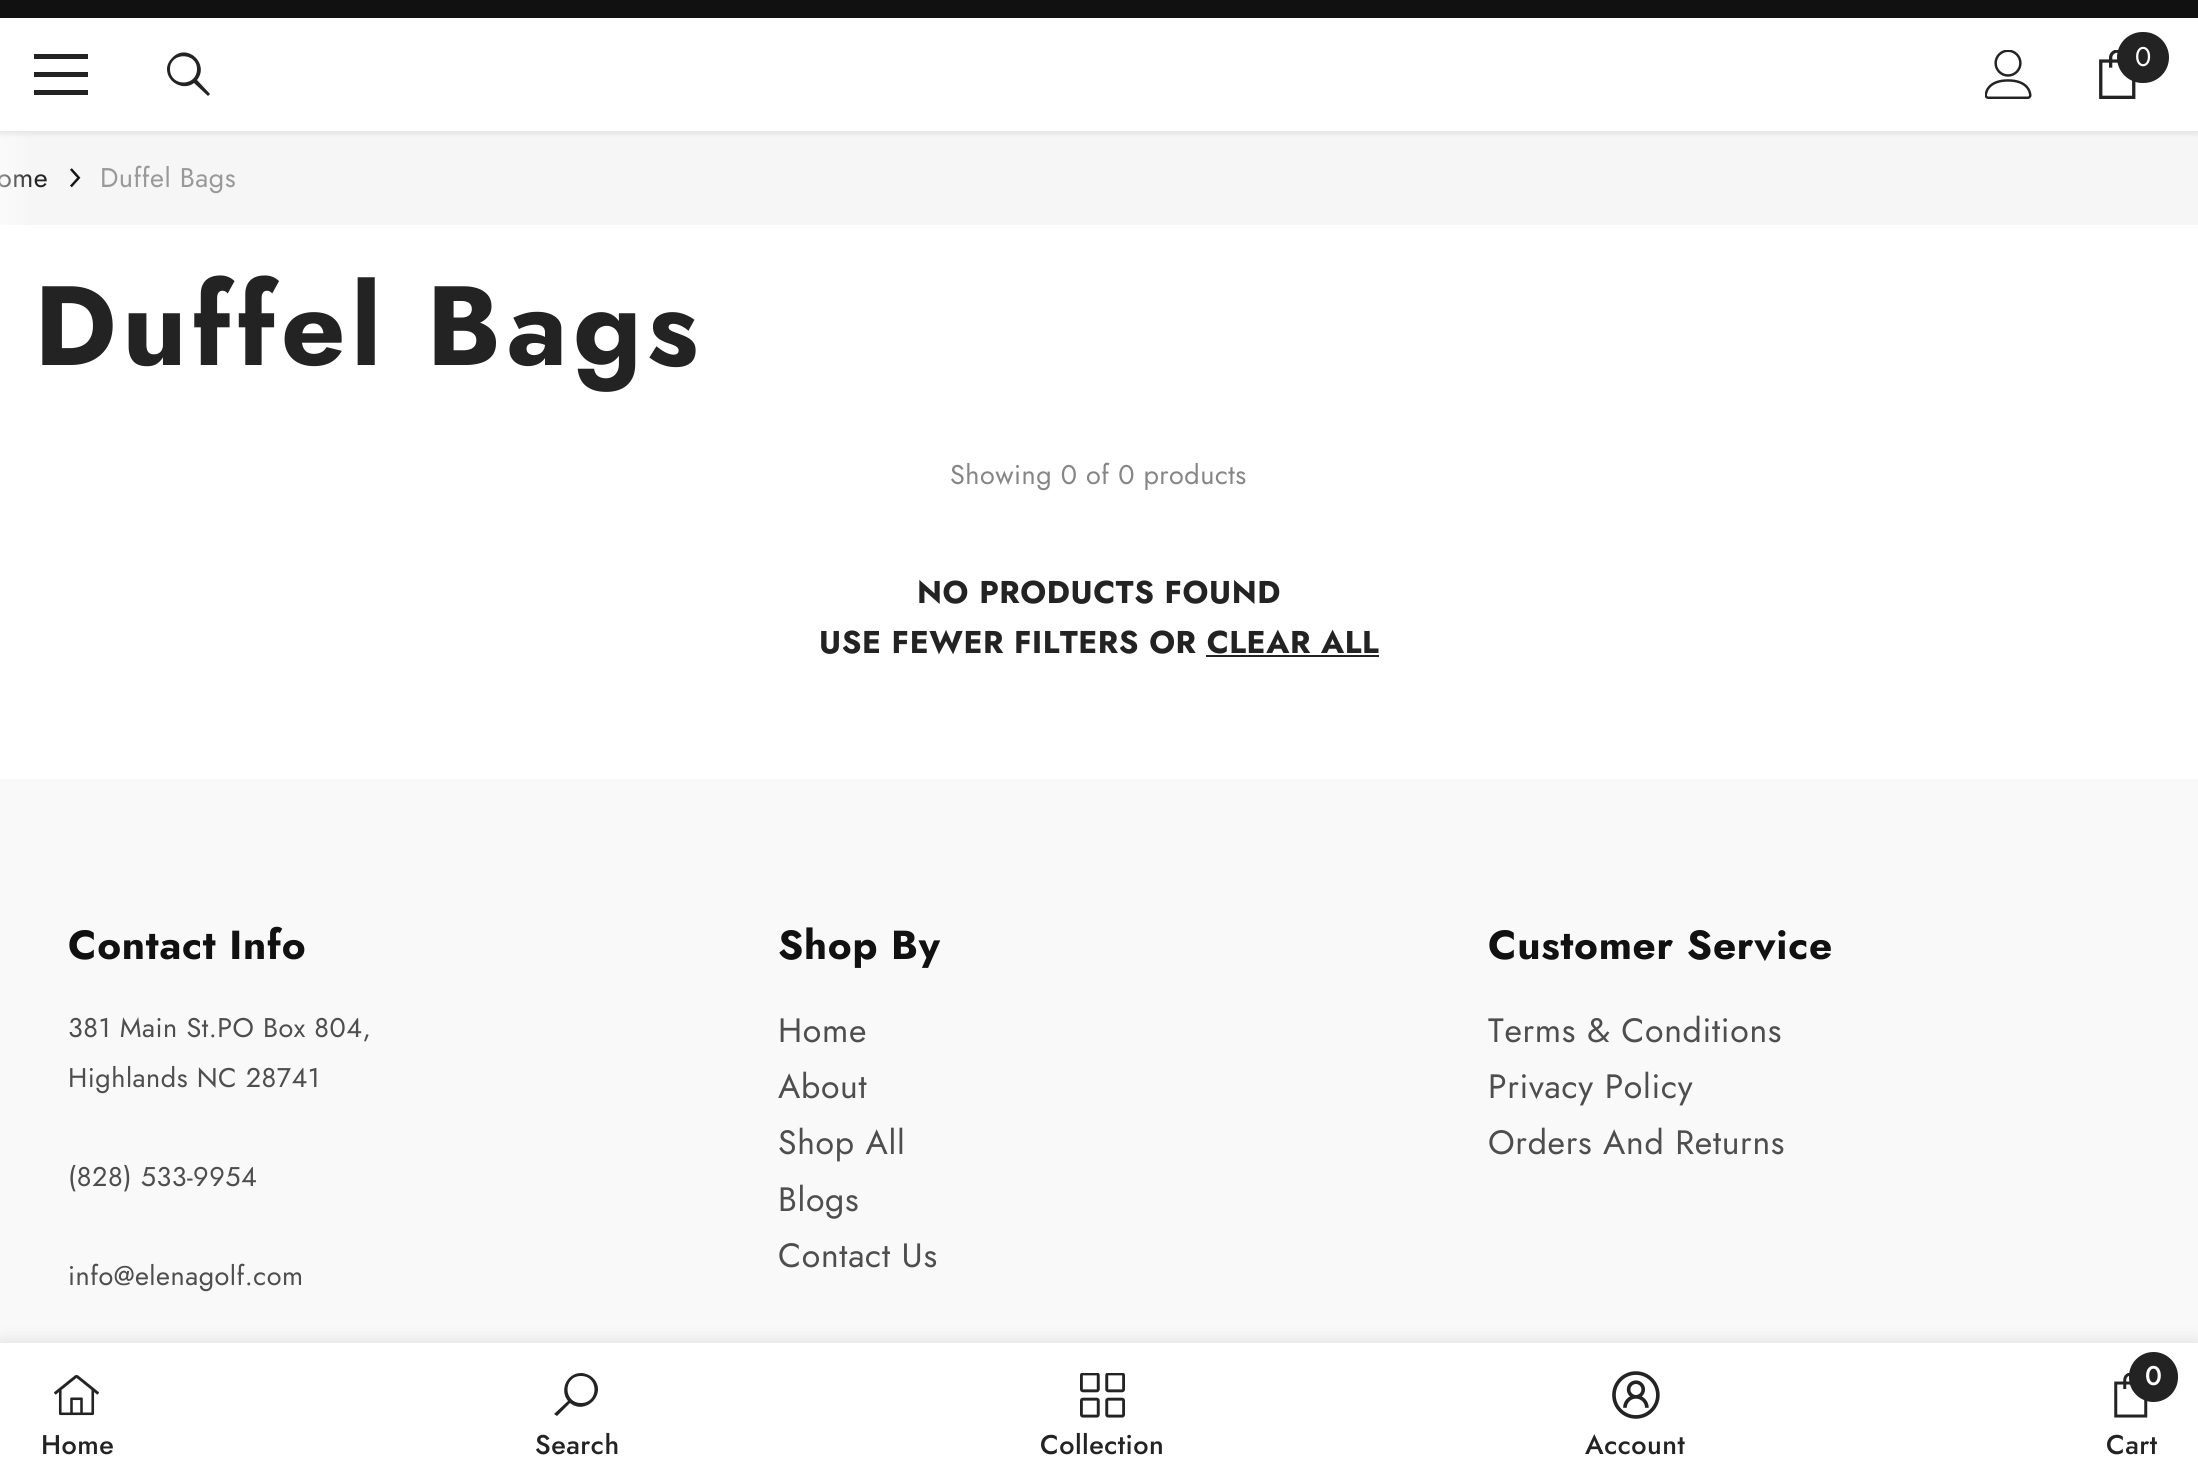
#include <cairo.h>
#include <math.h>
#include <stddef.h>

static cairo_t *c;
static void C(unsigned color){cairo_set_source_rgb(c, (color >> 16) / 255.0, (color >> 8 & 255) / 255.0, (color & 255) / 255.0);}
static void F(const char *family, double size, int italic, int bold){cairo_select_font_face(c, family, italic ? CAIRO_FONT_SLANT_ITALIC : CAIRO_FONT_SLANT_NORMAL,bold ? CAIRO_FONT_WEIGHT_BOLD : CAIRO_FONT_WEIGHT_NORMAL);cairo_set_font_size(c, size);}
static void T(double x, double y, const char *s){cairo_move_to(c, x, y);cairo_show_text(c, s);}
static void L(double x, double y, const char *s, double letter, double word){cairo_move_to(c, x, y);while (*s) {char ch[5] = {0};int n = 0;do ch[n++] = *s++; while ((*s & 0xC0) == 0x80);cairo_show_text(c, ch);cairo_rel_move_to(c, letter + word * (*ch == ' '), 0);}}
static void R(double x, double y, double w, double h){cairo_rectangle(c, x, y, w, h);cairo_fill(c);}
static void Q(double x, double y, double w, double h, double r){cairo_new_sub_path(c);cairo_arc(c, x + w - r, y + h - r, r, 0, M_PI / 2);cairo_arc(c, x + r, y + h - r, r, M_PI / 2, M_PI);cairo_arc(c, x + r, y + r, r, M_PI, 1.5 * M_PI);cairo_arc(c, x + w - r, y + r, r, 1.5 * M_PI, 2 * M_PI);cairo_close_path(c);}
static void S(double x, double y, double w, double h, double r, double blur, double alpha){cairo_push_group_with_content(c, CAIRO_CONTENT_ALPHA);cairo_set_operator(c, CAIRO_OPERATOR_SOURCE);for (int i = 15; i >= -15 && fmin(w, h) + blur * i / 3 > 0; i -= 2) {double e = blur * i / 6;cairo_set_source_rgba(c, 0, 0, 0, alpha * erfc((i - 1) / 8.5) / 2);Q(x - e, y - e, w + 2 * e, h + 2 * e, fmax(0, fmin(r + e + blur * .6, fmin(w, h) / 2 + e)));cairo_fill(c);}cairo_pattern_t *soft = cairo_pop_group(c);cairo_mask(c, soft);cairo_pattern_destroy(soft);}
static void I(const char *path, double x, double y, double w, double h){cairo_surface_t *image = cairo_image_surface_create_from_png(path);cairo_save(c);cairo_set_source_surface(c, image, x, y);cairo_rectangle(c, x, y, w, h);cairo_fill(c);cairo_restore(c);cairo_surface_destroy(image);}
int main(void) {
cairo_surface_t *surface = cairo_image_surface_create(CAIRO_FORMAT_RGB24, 2198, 1481);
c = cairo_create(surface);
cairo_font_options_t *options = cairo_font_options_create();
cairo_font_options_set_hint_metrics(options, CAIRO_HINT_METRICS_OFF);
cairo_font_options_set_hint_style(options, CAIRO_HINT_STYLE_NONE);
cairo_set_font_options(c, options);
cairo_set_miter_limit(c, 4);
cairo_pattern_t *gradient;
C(0xffffff);
cairo_paint(c);
C(0x111111);
R(0,0,2198,18);
C(0xf6f6f6);
R(0,131,2198,94);
F("Jost",27,0,0);
C(0x232323);
L(-3,187,"ome",.5,0);
gradient = cairo_pattern_create_linear(-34,178,34,178);
cairo_pattern_add_color_stop_rgba(gradient,0,1,1,1,1);
cairo_pattern_add_color_stop_rgba(gradient,1,1,1,1,0);
cairo_set_source(c,gradient);
cairo_pattern_destroy(gradient);
R(0,131,32,94);
C(0x000000);
S(0,20,2198,113,0,3.5,.1);
C(0xffffff);
R(0,18,2198,113);
C(0x232323);
R(34,72,54,5);
R(34,54,54,5);
R(34,90,54,5);
cairo_new_path(c);
cairo_move_to(c,167,69);
cairo_curve_to(c,167,83,184,91,194,83);
cairo_line_to(c,208,96);
cairo_line_to(c,210,94);
cairo_line_to(c,197,80);
cairo_curve_to(c,210,64,187,42,172,58);
cairo_curve_to(c,169,61,167,65,167,69);
cairo_close_path(c);
cairo_move_to(c,170,69);
cairo_curve_to(c,170,52,197,52,197,69);
cairo_curve_to(c,197,87,170,87,170,69);
cairo_close_path(c);
cairo_fill(c);
I("1.png",1985,50,47,49);
I("2.png",2099,50,37,49);
Q(2117,32,52,51,25.5);
cairo_fill(c);
C(0xffffff);
T(2135,66,"0");
I("3.png",70,168,11,20);
C(0x999999);
L(100,187,"Duffel Bags",.5,0);
F("Jost",112.5,0,1);
C(0x232323);
L(34,365,"Duffel Bags",5.6,0);
F("Jost",27,0,0);
C(0x868686);
L(950,484,"Showing 0 of 0 products",.5,0);
F("Jost",31.5,0,1);
C(0x232323);
L(917,603,"NO PRODUCTS FOUND",.6,0);
L(819,653,"USE FEWER FILTERS OR CLEAR ALL",.6,0);
R(1206,655,173,2);
C(0xf9f9f9);
R(0,779,2198,564);
F("Jost",40.5,0,1);
C(0x111111);
L(68,959,"Contact Info",.75,0);
F("Jost",27,0,0);
C(0x4e4e4e);
L(68,1037,"381 Main St.PO Box 804,",.5,0);
L(68,1087,"Highlands NC 28741",.5,0);
L(68,1186,"(828) 533-9954",.5,0);
L(68,1285,"info@elenagolf.com",.5,0);
F("Jost",40.5,0,1);
C(0x111111);
L(778,959,"Shop By",.75,0);
F("Jost",33.75,0,0);
C(0x4e4e4e);
L(778,1042,"Home",.7,0);
L(778,1098,"About",.7,0);
L(778,1154,"Shop All",.7,0);
L(778,1211,"Blogs",.7,0);
L(778,1267,"Contact Us",.7,0);
F("Jost",40.5,0,1);
C(0x111111);
L(1488,959,"Customer Service",.75,0);
F("Jost",33.75,0,0);
C(0x4e4e4e);
L(1488,1042,"Terms & Conditions",.7,0);
L(1488,1098,"Privacy Policy",.7,0);
L(1488,1154,"Orders And Returns",.7,0);
C(0x000000);
S(0,1343,2198,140,0,10,.12);
C(0xffffff);
R(0,1343,2198,138);
I("4.png",54,1375,45,41);
F("Jost Medium",27,0,0);
C(0x232323);
L(41,1454,"Home",.5,0);
cairo_new_path(c);
cairo_move_to(c,581,1373);
cairo_curve_to(c,567,1373,559,1390,568,1401);
cairo_line_to(c,554,1414);
cairo_line_to(c,557,1416);
cairo_line_to(c,570,1403);
cairo_curve_to(c,586,1416,608,1393,593,1378);
cairo_curve_to(c,590,1375,585,1373,581,1373);
cairo_close_path(c);
cairo_move_to(c,581,1376);
cairo_curve_to(c,599,1376,599,1403,581,1403);
cairo_curve_to(c,563,1403,563,1376,581,1376);
cairo_close_path(c);
cairo_fill(c);
L(535,1454,"Search",.5,0);
I("5.png",1080,1373,45,45);
L(1040,1454,"Collection",.5,0);
I("6.png",1612,1371,48,48);
L(1585,1454,"Account",.5,0);
I("7.png",2114,1373,34,45);
Q(2129,1352,49,50,24.5);
cairo_fill(c);
C(0xffffff);
T(2145,1385,"0");
C(0x232323);
L(2106,1454,"Cart",.5,0);
cairo_surface_write_to_png(surface, "o.png");
cairo_font_options_destroy(options);
cairo_destroy(c);
cairo_surface_destroy(surface);
return 0;
}
